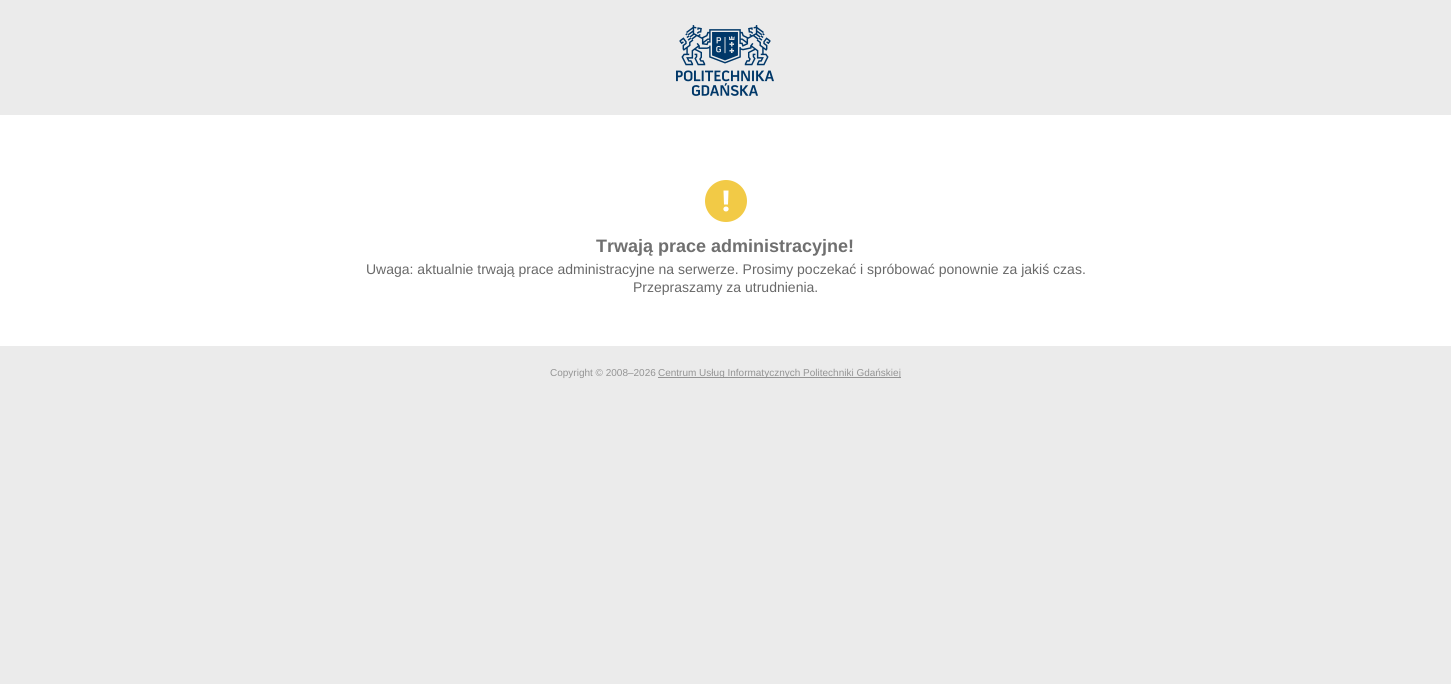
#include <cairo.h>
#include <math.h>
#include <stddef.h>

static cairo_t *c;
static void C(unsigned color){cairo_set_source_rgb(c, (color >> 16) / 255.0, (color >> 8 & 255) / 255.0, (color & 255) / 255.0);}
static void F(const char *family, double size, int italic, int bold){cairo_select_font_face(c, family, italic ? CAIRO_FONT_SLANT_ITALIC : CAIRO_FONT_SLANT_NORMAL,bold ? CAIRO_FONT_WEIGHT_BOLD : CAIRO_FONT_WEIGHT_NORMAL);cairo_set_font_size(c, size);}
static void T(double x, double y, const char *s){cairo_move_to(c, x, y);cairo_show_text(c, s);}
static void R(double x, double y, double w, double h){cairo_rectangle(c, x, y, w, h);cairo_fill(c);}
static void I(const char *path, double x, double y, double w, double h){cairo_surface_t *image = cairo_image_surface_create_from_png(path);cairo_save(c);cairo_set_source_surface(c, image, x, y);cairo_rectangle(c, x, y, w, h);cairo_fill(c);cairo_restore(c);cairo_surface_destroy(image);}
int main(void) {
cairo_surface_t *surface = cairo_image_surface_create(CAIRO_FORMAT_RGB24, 1451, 684);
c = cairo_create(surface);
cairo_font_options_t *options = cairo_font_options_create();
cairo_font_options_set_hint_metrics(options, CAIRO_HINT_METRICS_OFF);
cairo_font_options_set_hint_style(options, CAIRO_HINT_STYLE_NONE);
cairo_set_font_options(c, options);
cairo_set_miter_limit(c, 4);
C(0xebebeb);
cairo_paint(c);
I("1.png",676,25,98,71);
C(0xffffff);
R(0,115,1451,231);
C(0xf2ca46);
cairo_arc(c,726,201,21,0,2 * M_PI);
cairo_fill(c);
C(0xffffff);
cairo_new_path(c);
cairo_move_to(c,726,211.5);
cairo_curve_to(c,722.5,211.5,722.5,206.5,726,206.5);
cairo_curve_to(c,729.5,206.5,729.5,211.5,726,211.5);
cairo_close_path(c);
cairo_move_to(c,728.5,190.5);
cairo_line_to(c,728,204.5);
cairo_line_to(c,724,204.5);
cairo_line_to(c,723.5,190.5);
cairo_close_path(c);
cairo_fill(c);
F("Liberation Sans",18,0,1);
C(0x707070);
T(596,252,"Trwają prace administracyjne!");
F("Liberation Sans",14,0,0);
C(0x696969);
T(366,274,"Uwaga: aktualnie trwają prace administracyjne na serwerze. Prosimy poczekać i spróbować ponownie za jakiś czas.");
T(633,292,"Przepraszamy za utrudnienia.");
F("Liberation Sans",10,0,0);
C(0x949494);
T(550,376,"Copyright © 2008–2026");
R(658,377,243,1);
T(658,376,"Centrum Usług Informatycznych Politechniki Gdańskiej");
cairo_surface_write_to_png(surface, "o.png");
cairo_font_options_destroy(options);
cairo_destroy(c);
cairo_surface_destroy(surface);
return 0;
}
